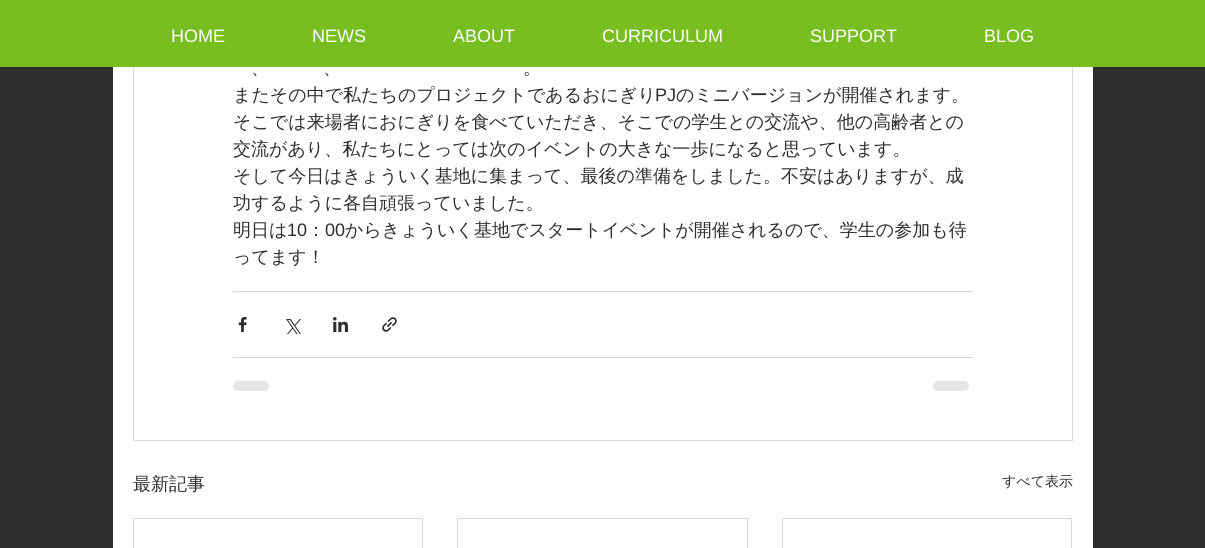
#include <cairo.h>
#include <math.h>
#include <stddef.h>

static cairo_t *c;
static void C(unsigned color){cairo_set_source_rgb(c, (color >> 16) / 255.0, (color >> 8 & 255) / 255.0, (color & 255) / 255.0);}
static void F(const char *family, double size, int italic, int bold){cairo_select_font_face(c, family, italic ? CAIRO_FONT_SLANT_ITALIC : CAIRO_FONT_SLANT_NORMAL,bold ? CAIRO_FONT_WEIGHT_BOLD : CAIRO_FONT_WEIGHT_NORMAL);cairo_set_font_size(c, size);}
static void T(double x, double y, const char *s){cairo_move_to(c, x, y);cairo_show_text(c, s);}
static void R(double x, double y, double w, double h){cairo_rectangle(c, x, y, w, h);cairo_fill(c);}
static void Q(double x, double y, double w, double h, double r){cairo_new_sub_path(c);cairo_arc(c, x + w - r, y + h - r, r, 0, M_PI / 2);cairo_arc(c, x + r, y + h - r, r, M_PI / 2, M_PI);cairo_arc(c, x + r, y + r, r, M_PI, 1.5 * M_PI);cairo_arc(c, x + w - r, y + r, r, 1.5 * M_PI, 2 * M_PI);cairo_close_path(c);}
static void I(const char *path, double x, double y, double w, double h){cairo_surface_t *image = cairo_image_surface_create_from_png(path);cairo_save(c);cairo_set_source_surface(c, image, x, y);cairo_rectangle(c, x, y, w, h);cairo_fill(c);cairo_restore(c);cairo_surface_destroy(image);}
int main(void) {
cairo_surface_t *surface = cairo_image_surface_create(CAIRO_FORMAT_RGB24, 1205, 548);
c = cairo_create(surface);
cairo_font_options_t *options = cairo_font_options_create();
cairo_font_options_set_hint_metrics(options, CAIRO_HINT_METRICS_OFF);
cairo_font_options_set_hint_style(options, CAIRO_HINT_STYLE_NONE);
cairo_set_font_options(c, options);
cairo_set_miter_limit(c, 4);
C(0x2f2e2e);
cairo_paint(c);
C(0xffffff);
R(113,67,980,481);
cairo_rectangle(c,133.5,-.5,939,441);
C(0xddd7d7);
cairo_set_line_width(c,1);
cairo_stroke(c);
C(0x78be20);
R(0,0,1205,67);
F("Liberation Sans",18,0,0);
C(0xffffff);
T(171,42,"HOME");
T(312,42,"NEWS");
T(453,42,"ABOUT");
T(602,42,"CURRICULUM");
T(810,42,"SUPPORT");
T(984,42,"BLOG");
F("WenQuanYi Zen Hei Medium",18,0,0);
C(0x2f2e2e);
T(251,74,"、");
T(323,74,"、");
T(523,74,"。");
T(233,101,"またその中で私たちのプロジェクトであるおにぎり");
F("Liberation Sans",18,0,0);
T(655,101,"PJ");
F("WenQuanYi Zen Hei Medium",18,0,0);
T(676,101,"のミニバージョンが開催されます。");
T(233,128,"そこでは来場者におにぎりを食べていただき、そこでの学生との交流や、他の高齢者との");
T(233,155,"交流があり、私たちにとっては次のイベントの大きな一歩になると思っています。");
T(233,182,"そして今日はきょういく基地に集まって、最後の準備をしました。不安はありますが、成");
T(233,209,"功するように各自頑張っていました。");
T(233,236,"明日は");
F("Liberation Sans",18,0,0);
T(287,236,"10");
F("WenQuanYi Zen Hei Medium",18,0,0);
T(307,236,"：");
F("Liberation Sans",18,0,0);
T(325,236,"00");
F("WenQuanYi Zen Hei Medium",18,0,0);
T(345,236,"からきょういく基地でスタートイベントが開催されるので、学生の参加も待");
T(233,263,"ってます！");
C(0xd5d5d5);
R(233,291,740,1);
I("1.png",238,317,9,15);
I("2.png",286,319,15,15);
I("3.png",333,317,15,15);
I("4.png",382,317,15,15);
R(233,357,740,1);
C(0xe6e6e6);
Q(233,381,36,10,5);
cairo_fill(c);
Q(933,381,36,10,5);
cairo_fill(c);
C(0x2f2e2e);
T(133,490,"最新記事");
F("WenQuanYi Zen Hei Medium",14,0,0);
T(1002,486,"すべて表示");
cairo_rectangle(c,133.5,518.5,289,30);
C(0xddd7d7);
cairo_stroke(c);
cairo_rectangle(c,457.5,518.5,290,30);
cairo_stroke(c);
cairo_rectangle(c,782.5,518.5,289,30);
cairo_stroke(c);
cairo_surface_write_to_png(surface, "o.png");
cairo_font_options_destroy(options);
cairo_destroy(c);
cairo_surface_destroy(surface);
return 0;
}
